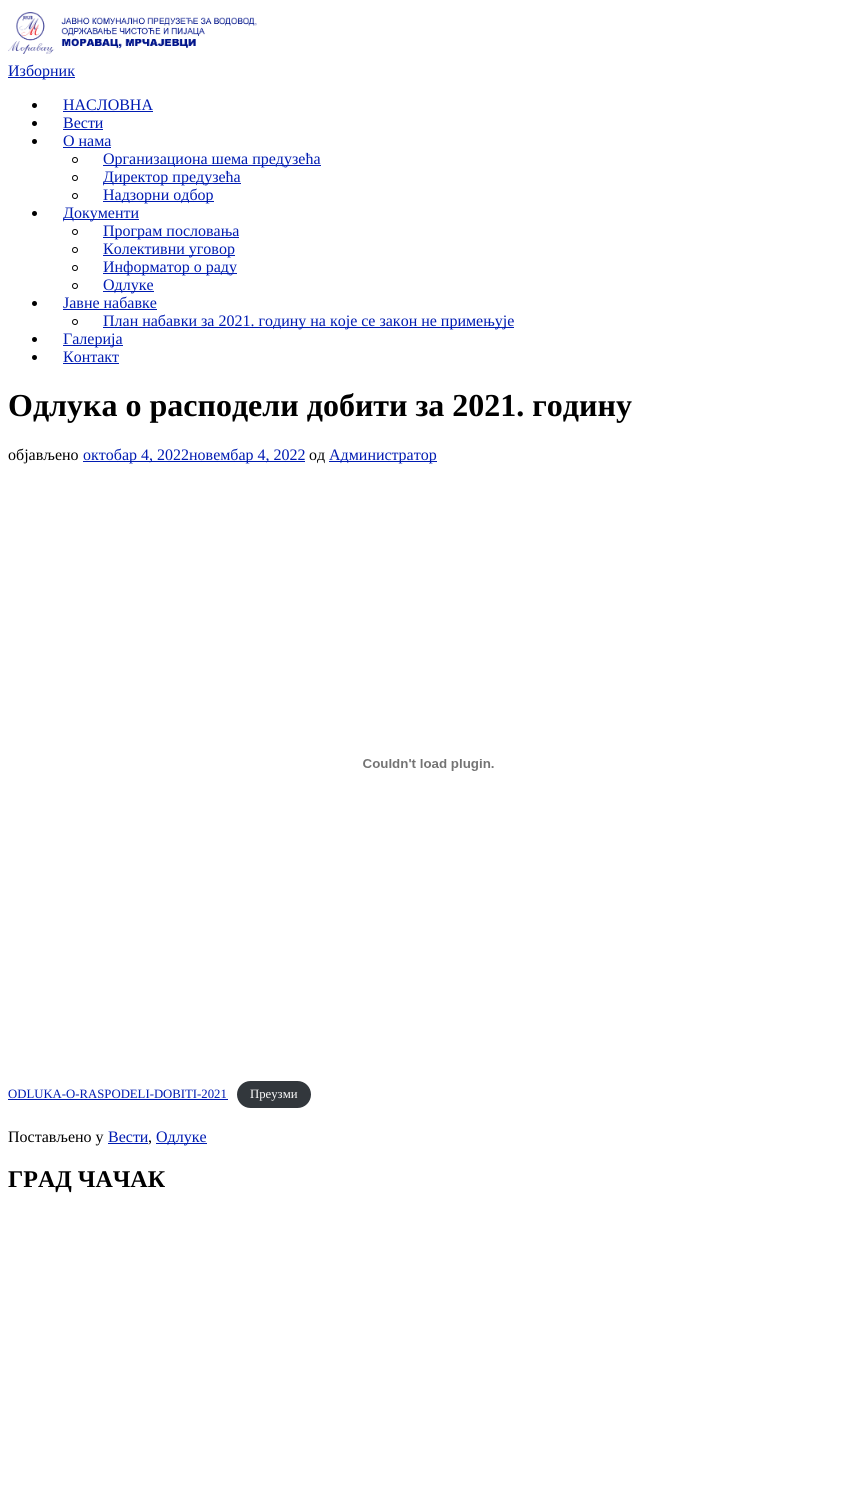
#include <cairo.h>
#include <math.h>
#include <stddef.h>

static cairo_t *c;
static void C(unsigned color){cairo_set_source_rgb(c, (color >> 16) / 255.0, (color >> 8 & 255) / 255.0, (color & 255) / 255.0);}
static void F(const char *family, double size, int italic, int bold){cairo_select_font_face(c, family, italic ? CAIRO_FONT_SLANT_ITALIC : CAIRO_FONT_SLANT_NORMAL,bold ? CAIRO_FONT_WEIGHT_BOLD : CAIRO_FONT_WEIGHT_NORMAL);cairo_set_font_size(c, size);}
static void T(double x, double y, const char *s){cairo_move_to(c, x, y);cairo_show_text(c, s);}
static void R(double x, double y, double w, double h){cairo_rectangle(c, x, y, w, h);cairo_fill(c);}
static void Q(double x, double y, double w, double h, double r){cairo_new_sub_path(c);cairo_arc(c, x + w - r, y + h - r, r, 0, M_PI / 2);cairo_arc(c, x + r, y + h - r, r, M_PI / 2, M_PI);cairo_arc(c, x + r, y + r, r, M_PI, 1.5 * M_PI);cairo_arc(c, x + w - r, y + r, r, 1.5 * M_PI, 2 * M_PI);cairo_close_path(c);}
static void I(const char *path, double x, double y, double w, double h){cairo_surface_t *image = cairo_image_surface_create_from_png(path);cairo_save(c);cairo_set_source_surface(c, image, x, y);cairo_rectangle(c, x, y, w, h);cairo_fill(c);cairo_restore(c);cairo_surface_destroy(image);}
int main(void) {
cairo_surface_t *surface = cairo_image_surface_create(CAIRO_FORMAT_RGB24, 857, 1499);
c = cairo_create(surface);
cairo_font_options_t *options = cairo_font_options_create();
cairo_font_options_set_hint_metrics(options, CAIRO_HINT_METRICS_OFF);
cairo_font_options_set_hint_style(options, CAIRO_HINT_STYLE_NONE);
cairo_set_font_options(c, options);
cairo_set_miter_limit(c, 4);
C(0xffffff);
cairo_paint(c);
I("1.png",8,12,249,42);
C(0x011cb2);
R(8,77,67,1);
F("Liberation Serif",16,0,0);
T(8,76,"Изборник");
C(0x000000);
cairo_new_path(c);
cairo_arc(c,34.5,105.5,2.5,0,2 * M_PI);
cairo_fill(c);
C(0x011cb2);
T(63,110,"НАСЛОВНА");
R(63,111,90,1);
C(0x000000);
cairo_new_path(c);
cairo_arc(c,34.5,123.5,2.5,0,2 * M_PI);
cairo_fill(c);
C(0x011cb2);
T(63,128,"Вести");
R(63,129,40,1);
C(0x000000);
cairo_new_path(c);
cairo_arc(c,34.5,141.5,2.5,0,2 * M_PI);
cairo_fill(c);
C(0x011cb2);
T(63,146,"О нама");
R(63,147,48,1);
cairo_new_path(c);
cairo_arc(c,75,160,2.5,0,2 * M_PI);
C(0x000000);
cairo_set_line_width(c,1);
cairo_stroke(c);
C(0x011cb2);
R(103,165,218,1);
T(103,164,"Организациона шема предузећа");
cairo_new_path(c);
cairo_arc(c,75,178,2.5,0,2 * M_PI);
C(0x000000);
cairo_stroke(c);
C(0x011cb2);
R(103,183,138,1);
T(103,182,"Директор предузећа");
cairo_new_path(c);
cairo_arc(c,75,196,2.5,0,2 * M_PI);
C(0x000000);
cairo_stroke(c);
C(0x011cb2);
R(103,201,111,1);
T(103,200,"Надзорни одбор");
C(0x000000);
cairo_new_path(c);
cairo_arc(c,34.5,213.5,2.5,0,2 * M_PI);
cairo_fill(c);
C(0x011cb2);
R(63,219,76,1);
T(63,218,"Документи");
cairo_new_path(c);
cairo_arc(c,75,232,2.5,0,2 * M_PI);
C(0x000000);
cairo_stroke(c);
C(0x011cb2);
R(103,237,136,1);
T(103,236,"Програм пословања");
cairo_new_path(c);
cairo_arc(c,75,250,2.5,0,2 * M_PI);
C(0x000000);
cairo_stroke(c);
C(0x011cb2);
R(103,255,132,1);
T(103,254,"Колективни уговор");
cairo_new_path(c);
cairo_arc(c,75,268,2.5,0,2 * M_PI);
C(0x000000);
cairo_stroke(c);
C(0x011cb2);
R(103,273,134,1);
T(103,272,"Информатор о раду");
cairo_new_path(c);
cairo_arc(c,75,286,2.5,0,2 * M_PI);
C(0x000000);
cairo_stroke(c);
C(0x011cb2);
R(103,291,51,1);
T(103,290,"Одлуке");
C(0x000000);
cairo_new_path(c);
cairo_arc(c,34.5,303.5,2.5,0,2 * M_PI);
cairo_fill(c);
C(0x011cb2);
T(63,308,"Јавне набавке");
R(63,309,94,1);
cairo_new_path(c);
cairo_arc(c,75,322,2.5,0,2 * M_PI);
C(0x000000);
cairo_stroke(c);
C(0x011cb2);
R(103,327,411,1);
T(103,326,"План набавки за 2021. годину на које се закон не примењује");
C(0x000000);
cairo_new_path(c);
cairo_arc(c,34.5,339.5,2.5,0,2 * M_PI);
cairo_fill(c);
C(0x011cb2);
R(63,345,60,1);
T(63,344,"Галерија");
C(0x000000);
cairo_new_path(c);
cairo_arc(c,34.5,357.5,2.5,0,2 * M_PI);
cairo_fill(c);
C(0x011cb2);
T(63,362,"Контакт");
R(63,363,56,1);
F("Liberation Serif",32,0,1);
C(0x000000);
T(8,416,"Одлука о расподели добити за 2021. годину");
F("Liberation Serif",16,0,0);
T(8,460,"објављено");
C(0x011cb2);
R(83,461,222,1);
T(83,460,"октобар 4, 2022новембар 4, 2022");
C(0x000000);
T(309,460,"од");
C(0x011cb2);
R(329,461,108,1);
T(329,460,"Администратор");
I("2.png",363,759,131,12);
F("Liberation Serif",12.75,0,0);
T(8,1098,"ODLUKA-O-RASPODELI-DOBITI-2021");
R(8,1099,220,1);
C(0x32373c);
Q(237,1081,74,27,13.5);
cairo_fill(c);
C(0xffffff);
T(250,1098,"Преузми");
F("Liberation Serif",16,0,0);
C(0x000000);
T(8,1142,"Постављено у");
C(0x011cb2);
T(108,1142,"Вести");
C(0x000000);
T(148,1142,",");
C(0x011cb2);
R(108,1143,40,1);
R(156,1143,51,1);
T(156,1142,"Одлуке");
F("Liberation Serif",24,0,1);
C(0x000000);
T(8,1187,"ГРАД ЧАЧАК");
cairo_surface_write_to_png(surface, "o.png");
cairo_font_options_destroy(options);
cairo_destroy(c);
cairo_surface_destroy(surface);
return 0;
}
